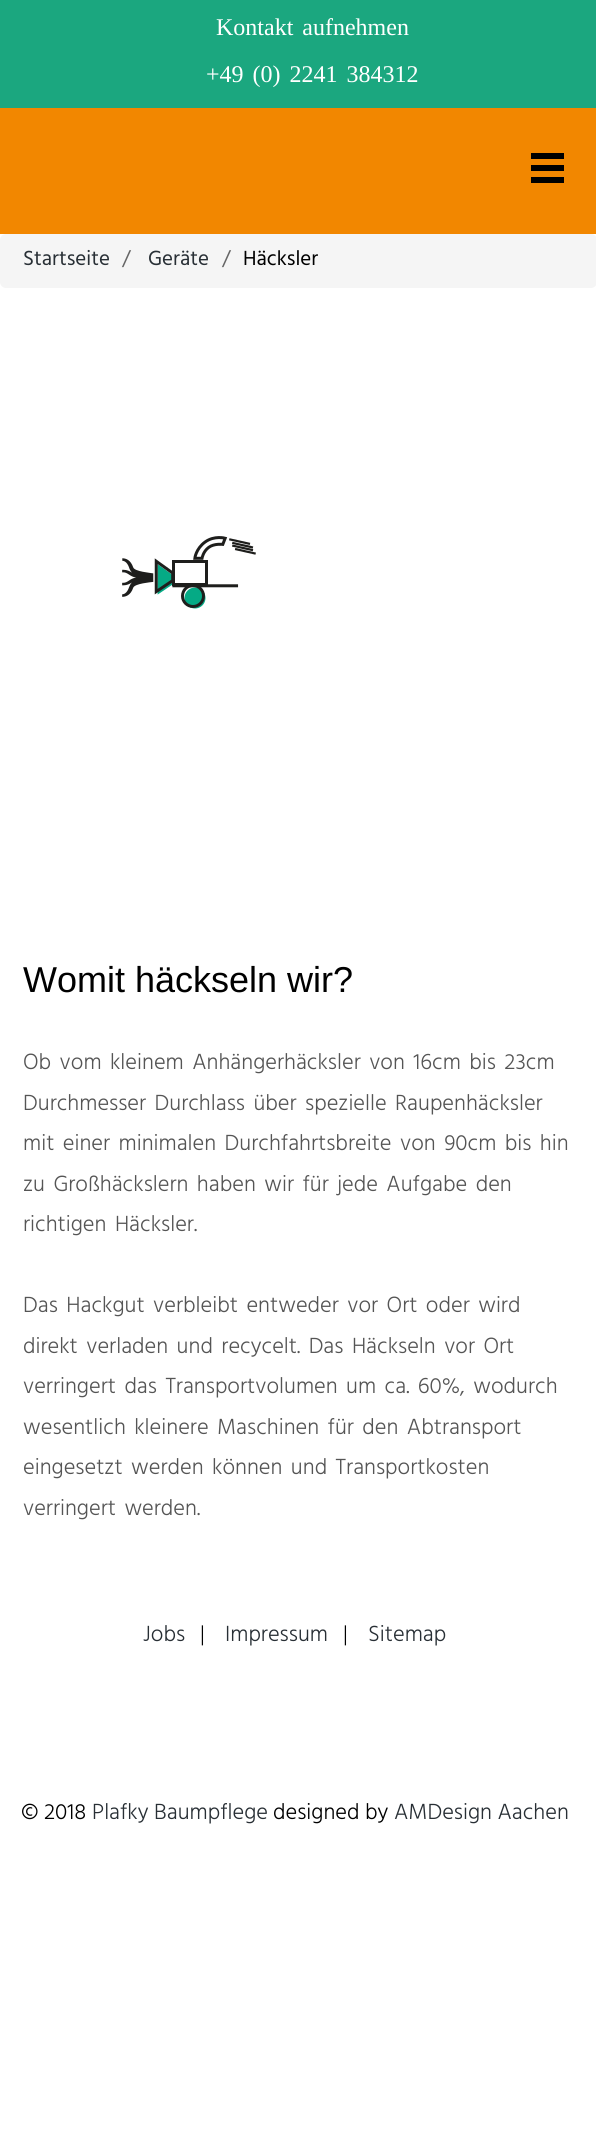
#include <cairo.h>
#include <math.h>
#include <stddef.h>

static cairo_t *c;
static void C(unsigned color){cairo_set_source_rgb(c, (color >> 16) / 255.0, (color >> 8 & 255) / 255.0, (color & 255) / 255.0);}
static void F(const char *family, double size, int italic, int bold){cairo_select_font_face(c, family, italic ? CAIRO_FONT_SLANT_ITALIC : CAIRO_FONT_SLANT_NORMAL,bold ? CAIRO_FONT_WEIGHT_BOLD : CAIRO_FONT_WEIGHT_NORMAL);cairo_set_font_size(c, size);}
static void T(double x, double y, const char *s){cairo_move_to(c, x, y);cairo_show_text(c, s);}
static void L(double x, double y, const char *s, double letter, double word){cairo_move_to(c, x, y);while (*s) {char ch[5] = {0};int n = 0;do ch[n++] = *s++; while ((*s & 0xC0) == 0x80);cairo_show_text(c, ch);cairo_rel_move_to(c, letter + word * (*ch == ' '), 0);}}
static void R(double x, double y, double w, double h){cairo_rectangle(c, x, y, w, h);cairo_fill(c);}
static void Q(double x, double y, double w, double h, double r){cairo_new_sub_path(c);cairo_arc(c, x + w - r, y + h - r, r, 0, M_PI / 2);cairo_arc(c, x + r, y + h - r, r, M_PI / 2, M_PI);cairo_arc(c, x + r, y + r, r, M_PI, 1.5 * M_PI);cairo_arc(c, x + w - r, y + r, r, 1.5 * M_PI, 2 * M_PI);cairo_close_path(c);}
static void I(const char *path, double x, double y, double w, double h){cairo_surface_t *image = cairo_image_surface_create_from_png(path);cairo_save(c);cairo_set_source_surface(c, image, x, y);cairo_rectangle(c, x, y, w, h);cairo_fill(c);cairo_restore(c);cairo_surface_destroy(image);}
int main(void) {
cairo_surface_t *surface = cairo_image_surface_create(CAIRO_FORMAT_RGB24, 596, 2130);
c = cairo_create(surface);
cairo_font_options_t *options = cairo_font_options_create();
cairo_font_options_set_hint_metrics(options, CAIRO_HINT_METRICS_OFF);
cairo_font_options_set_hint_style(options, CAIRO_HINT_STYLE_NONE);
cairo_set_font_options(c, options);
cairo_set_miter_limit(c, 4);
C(0xffffff);
cairo_paint(c);
C(0x1ba77f);
R(0,0,596,108);
F("Liberation Serif",24,0,0);
C(0xffffff);
L(216,35,"Kontakt aufnehmen",0,3);
L(206,82,"+49 (0) 2241 384312",0,3);
C(0xf28700);
R(0,108,596,126);
C(0x000000);
R(531,153,33,6);
R(531,165,33,6);
R(531,177,33,6);
C(0xf5f5f5);
Q(0,234,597,54,6);
cairo_fill(c);
F("Hind",21,0,0);
C(0x282f35);
T(23,265,"Startseite");
C(0x666666);
T(122,265,"/");
C(0x282f35);
T(148,265,"Geräte");
C(0x666666);
T(222,265,"/");
C(0x000000);
T(243,265,"Häcksler");
I("1.png",122,536,134,73);
F("Liberation Sans",36,0,0);
T(23,992,"Womit häckseln wir?");
F("Hind Light",22.5,0,0);
C(0x555555);
L(23,1069,"Ob vom kleinem Anhängerhäcksler von 16cm bis 23cm",0,3);
L(23,1110,"Durchmesser Durchlass über spezielle Raupenhäcksler",0,3);
L(23,1150,"mit einer minimalen Durchfahrtsbreite von 90cm bis hin",0,3);
L(23,1191,"zu Großhäckslern haben wir für jede Aufgabe den",0,3);
L(23,1231,"richtigen Häcksler.",0,3);
L(23,1312,"Das Hackgut verbleibt entweder vor Ort oder wird",0,3);
L(23,1353,"direkt verladen und recycelt. Das Häckseln vor Ort",0,3);
L(23,1393,"verringert das Transportvolumen um ca. 60%, wodurch",0,3);
L(23,1434,"wesentlich kleinere Maschinen für den Abtransport",0,3);
L(23,1474,"eingesetzt werden können und Transportkosten",0,3);
L(23,1515,"verringert werden.",0,3);
C(0x282f35);
T(143,1641,"Jobs");
C(0x000000);
T(200,1641,"|");
C(0x282f35);
T(225,1641,"Impressum");
C(0x000000);
T(343,1641,"|");
C(0x282f35);
T(368,1641,"Sitemap");
C(0x000000);
T(21,1819,"© 2018");
C(0x282f35);
T(92,1819,"Plafky Baumpflege");
C(0x000000);
T(273,1819,"designed by");
C(0x282f35);
T(394,1819,"AMDesign Aachen");
cairo_surface_write_to_png(surface, "o.png");
cairo_font_options_destroy(options);
cairo_destroy(c);
cairo_surface_destroy(surface);
return 0;
}
